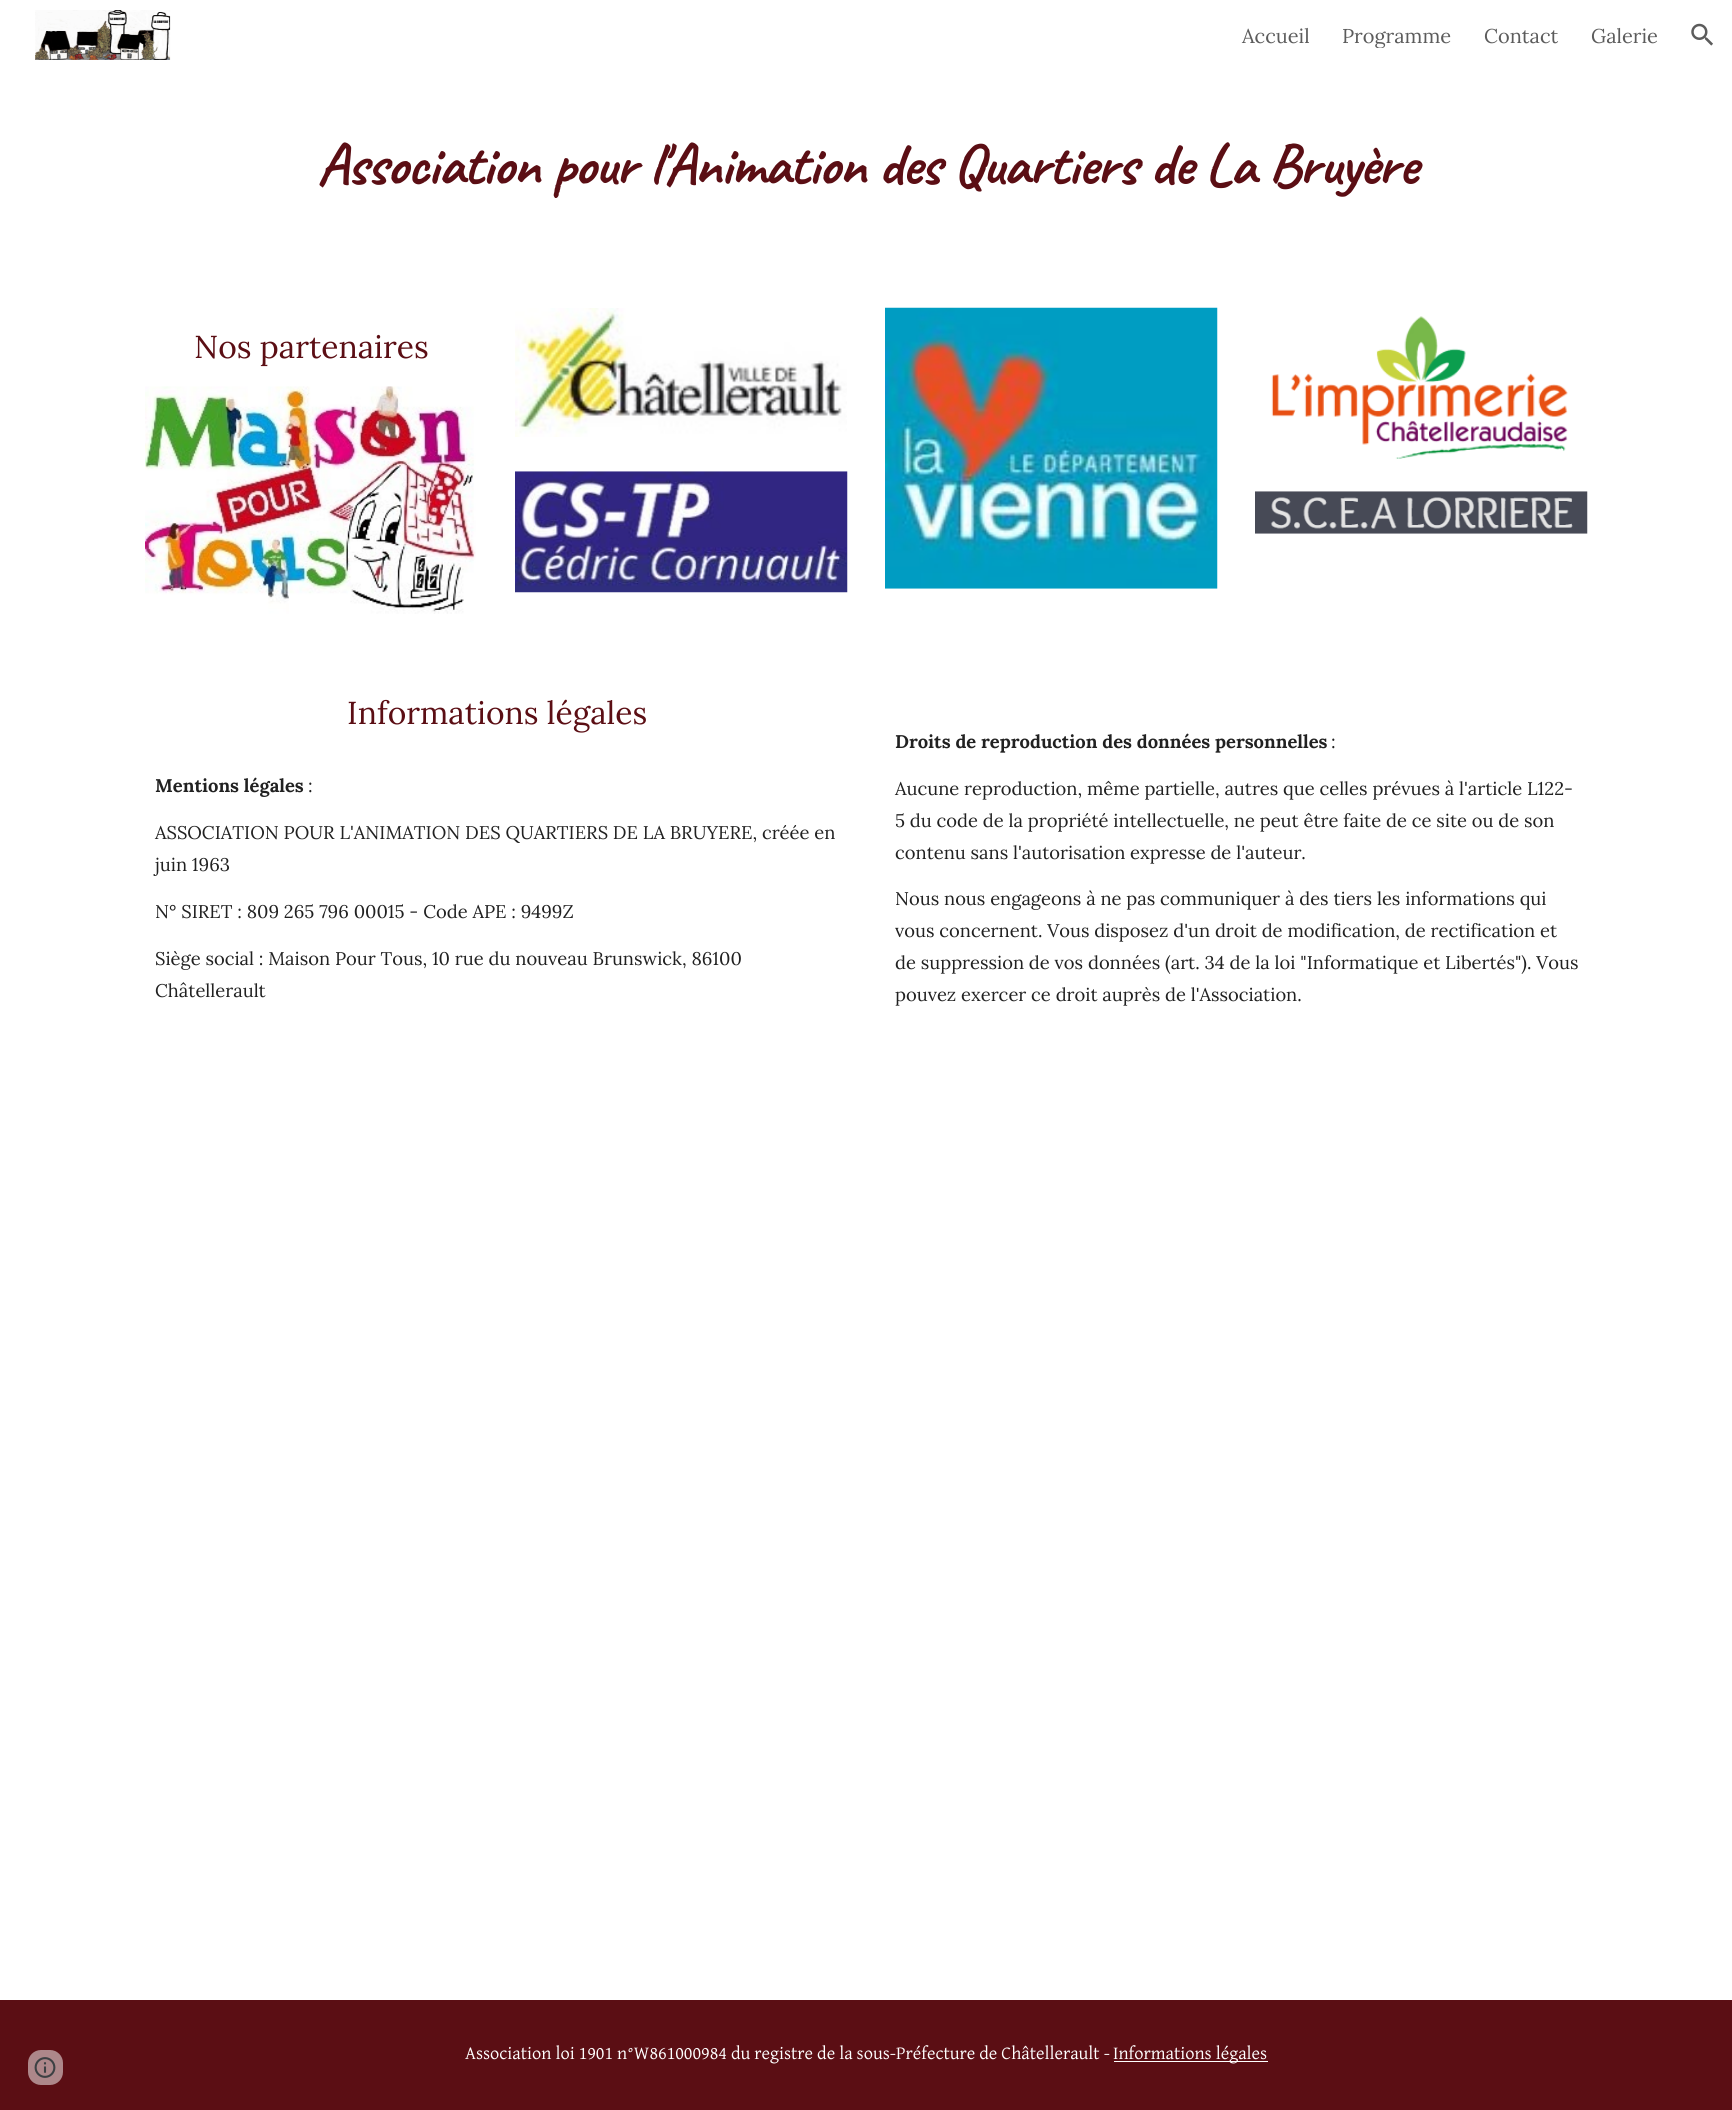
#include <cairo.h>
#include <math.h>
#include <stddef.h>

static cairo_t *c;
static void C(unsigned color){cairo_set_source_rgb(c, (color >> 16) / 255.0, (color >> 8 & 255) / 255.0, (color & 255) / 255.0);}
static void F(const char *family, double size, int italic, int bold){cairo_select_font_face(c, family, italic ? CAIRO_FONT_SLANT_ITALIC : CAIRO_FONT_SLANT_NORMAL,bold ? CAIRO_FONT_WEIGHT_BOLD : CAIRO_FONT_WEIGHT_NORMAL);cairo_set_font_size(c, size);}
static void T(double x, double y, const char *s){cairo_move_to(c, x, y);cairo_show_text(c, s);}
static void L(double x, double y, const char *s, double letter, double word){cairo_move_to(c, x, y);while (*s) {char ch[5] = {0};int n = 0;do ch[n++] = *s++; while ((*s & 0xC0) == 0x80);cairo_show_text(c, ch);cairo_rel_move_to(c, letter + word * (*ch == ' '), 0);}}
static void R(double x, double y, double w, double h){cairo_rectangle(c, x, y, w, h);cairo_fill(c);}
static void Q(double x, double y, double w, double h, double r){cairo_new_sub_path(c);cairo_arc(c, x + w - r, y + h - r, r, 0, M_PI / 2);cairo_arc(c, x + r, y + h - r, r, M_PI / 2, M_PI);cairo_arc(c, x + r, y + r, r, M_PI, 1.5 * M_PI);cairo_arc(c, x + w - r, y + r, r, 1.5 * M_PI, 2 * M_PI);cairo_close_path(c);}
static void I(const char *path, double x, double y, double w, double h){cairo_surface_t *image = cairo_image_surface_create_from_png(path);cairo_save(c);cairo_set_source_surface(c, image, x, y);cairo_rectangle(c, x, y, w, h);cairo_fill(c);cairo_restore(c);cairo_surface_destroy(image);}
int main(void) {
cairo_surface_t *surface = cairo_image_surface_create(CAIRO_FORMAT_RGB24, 1732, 2110);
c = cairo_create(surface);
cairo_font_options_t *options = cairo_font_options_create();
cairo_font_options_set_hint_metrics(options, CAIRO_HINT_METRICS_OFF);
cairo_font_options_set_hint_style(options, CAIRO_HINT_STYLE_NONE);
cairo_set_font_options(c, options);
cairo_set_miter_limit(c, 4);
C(0xffffff);
cairo_paint(c);
I("1.png",35,10,136,50);
F("Lora",20,0,0);
C(0x5c5c5c);
T(1242,43,"Accueil");
cairo_save(c);
cairo_rectangle(c,1343,23,108,25);
cairo_clip(c);
T(1342,43,"Programme");
cairo_restore(c);
T(1484,43,"Contact");
T(1591,43,"Galerie");
I("2.png",1691,23,22,23);
F("Caveat",60,0,1);
C(0x5b0e14);
L(317,184,"Association pour l'Animation des Quartiers de La Bruyère",-1.25,.25);
F("Lora",31.75,0,0);
T(194,358,"Nos partenaires");
I("3.png",145,386,331,228);
I("4.png",515,308,332,129);
I("5.png",515,471,333,122);
I("6.png",885,307,333,282);
I("7.png",1271,316,297,143);
I("8.png",1255,491,333,43);
T(347,724,"Informations légales");
F("Lora",18.35,0,1);
C(0x212121);
T(155,792,"Mentions légales");
F("Lora",18.35,0,0);
T(308,792,":");
T(155,839,"ASSOCIATION POUR L'ANIMATION DES QUARTIERS DE LA BRUYERE, créée en");
T(155,871,"juin 1963");
T(155,918,"N° SIRET : 809 265 796 00015 - Code APE : 9499Z");
T(155,965,"Siège social : Maison Pour Tous, 10 rue du nouveau Brunswick, 86100");
T(155,997,"Châtellerault");
F("Lora",18.35,0,1);
T(895,748,"Droits de reproduction des données personnelles");
F("Lora",18.35,0,0);
T(1331,748,":");
T(895,795,"Aucune reproduction, même partielle, autres que celles prévues à l'article L122-");
T(895,827,"5 du code de la propriété intellectuelle, ne peut être faite de ce site ou de son");
T(895,859,"contenu sans l'autorisation expresse de l'auteur.");
T(895,905,"Nous nous engageons à ne pas communiquer à des tiers les informations qui");
T(895,937,"vous concernent. Vous disposez d'un droit de modification, de rectification et");
T(895,969,"de suppression de vos données (art. 34 de la loi \"Informatique et Libertés\"). Vous");
T(895,1001,"pouvez exercer ce droit auprès de l'Association.");
C(0x5b0e14);
R(0,2000,1732,110);
C(0xad878a);
Q(28,2050,35,35,13);
cairo_fill(c);
I("9.png",34,2057,22,21);
F("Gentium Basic",18.35,0,0);
C(0xffffff);
T(465,2059,"Association loi 1901 n°W861000984 du registre de la sous-Préfecture de Châtellerault -");
R(1114,2061,154,1);
T(1113,2059,"Informations légales");
cairo_surface_write_to_png(surface, "o.png");
cairo_font_options_destroy(options);
cairo_destroy(c);
cairo_surface_destroy(surface);
return 0;
}
